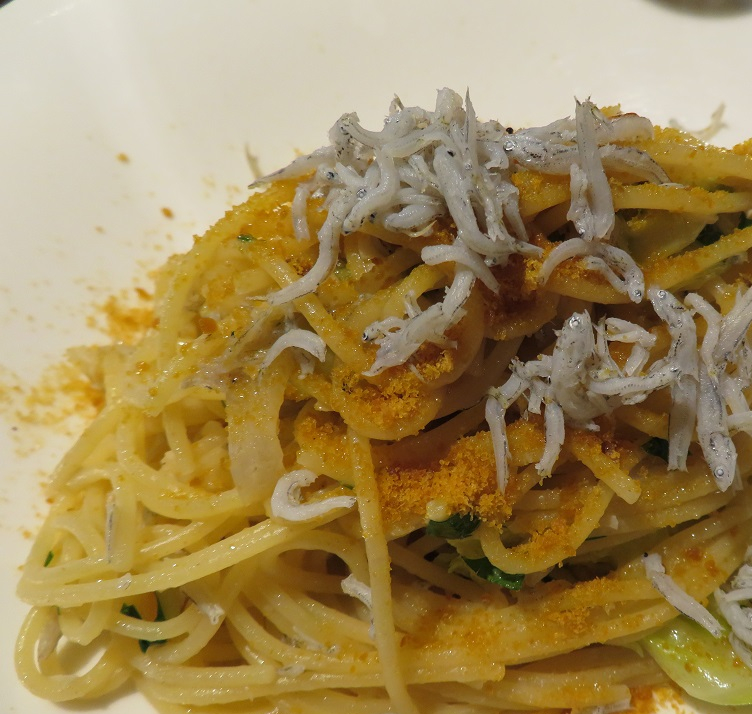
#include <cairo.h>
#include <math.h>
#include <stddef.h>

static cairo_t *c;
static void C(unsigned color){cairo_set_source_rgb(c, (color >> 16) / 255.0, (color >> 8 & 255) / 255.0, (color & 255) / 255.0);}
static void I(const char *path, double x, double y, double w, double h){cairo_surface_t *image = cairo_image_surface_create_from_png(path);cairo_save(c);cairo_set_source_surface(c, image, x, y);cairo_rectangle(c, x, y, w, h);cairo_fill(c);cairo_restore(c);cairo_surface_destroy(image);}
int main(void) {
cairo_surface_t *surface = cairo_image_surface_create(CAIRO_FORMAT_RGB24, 752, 714);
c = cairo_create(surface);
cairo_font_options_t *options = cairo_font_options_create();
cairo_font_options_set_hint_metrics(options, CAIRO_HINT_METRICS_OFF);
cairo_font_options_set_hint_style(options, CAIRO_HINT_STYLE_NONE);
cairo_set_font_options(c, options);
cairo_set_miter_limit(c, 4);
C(0xffffff);
cairo_paint(c);
I("1.png",0,0,752,714);
cairo_surface_write_to_png(surface, "o.png");
cairo_font_options_destroy(options);
cairo_destroy(c);
cairo_surface_destroy(surface);
return 0;
}
